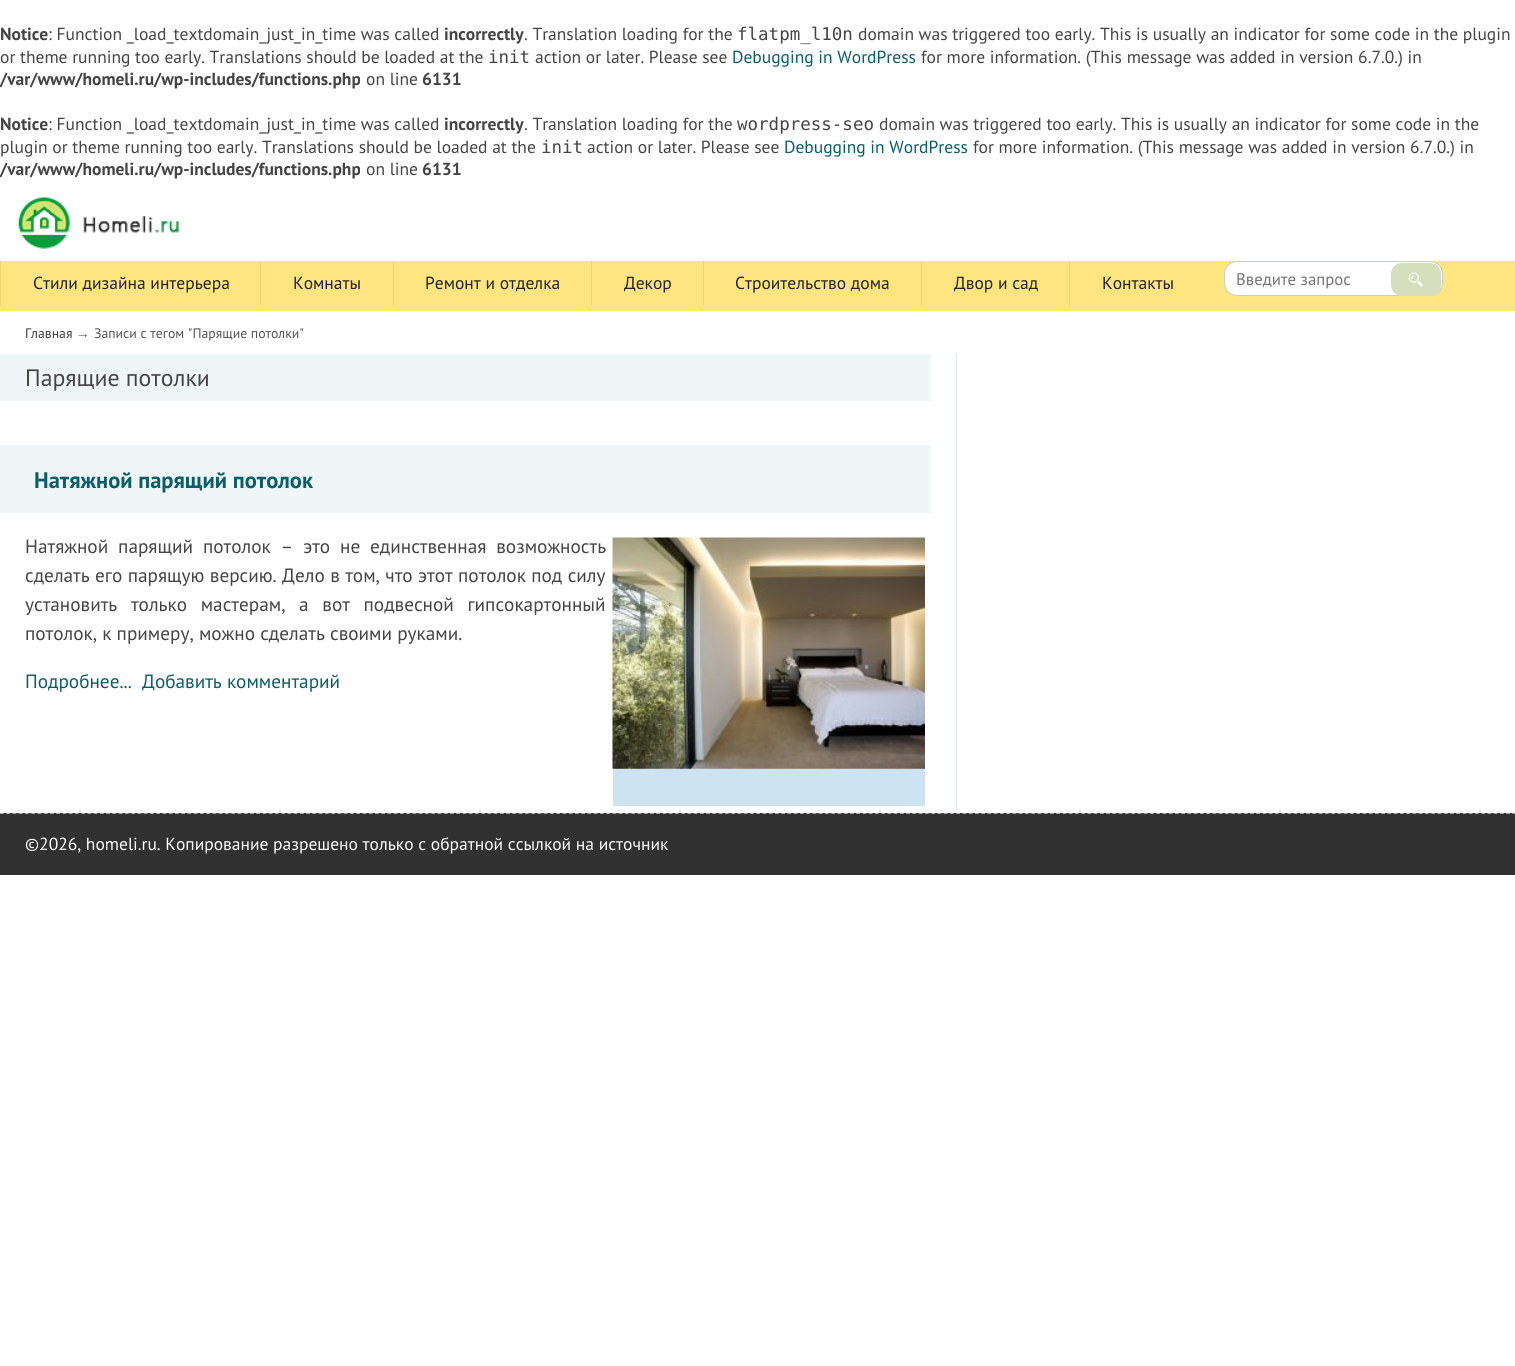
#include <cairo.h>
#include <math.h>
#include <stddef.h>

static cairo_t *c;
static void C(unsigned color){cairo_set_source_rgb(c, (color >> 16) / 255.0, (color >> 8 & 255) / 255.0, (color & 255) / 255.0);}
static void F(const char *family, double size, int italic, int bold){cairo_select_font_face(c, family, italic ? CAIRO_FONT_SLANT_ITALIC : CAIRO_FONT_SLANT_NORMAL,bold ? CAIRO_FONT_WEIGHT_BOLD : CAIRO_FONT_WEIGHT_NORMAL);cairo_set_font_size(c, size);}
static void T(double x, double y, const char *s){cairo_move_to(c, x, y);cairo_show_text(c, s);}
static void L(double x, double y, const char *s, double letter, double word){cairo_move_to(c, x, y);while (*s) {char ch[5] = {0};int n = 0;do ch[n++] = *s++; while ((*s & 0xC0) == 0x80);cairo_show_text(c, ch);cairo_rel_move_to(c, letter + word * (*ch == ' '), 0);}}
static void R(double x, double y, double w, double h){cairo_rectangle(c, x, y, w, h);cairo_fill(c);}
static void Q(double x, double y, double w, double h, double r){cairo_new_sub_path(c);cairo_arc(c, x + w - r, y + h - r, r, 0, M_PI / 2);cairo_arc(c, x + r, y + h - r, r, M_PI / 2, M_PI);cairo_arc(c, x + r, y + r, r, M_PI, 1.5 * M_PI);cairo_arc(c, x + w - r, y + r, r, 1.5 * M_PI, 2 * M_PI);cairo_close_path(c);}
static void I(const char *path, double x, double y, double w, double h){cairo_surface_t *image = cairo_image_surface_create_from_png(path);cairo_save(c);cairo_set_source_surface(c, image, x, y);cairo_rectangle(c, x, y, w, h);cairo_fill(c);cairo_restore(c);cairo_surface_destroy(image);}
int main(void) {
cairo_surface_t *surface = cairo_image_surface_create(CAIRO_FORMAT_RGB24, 1515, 1366);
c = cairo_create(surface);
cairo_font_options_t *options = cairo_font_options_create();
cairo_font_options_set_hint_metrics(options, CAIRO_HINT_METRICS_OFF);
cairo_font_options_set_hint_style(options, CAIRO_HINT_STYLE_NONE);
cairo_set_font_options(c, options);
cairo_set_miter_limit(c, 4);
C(0xffffff);
cairo_paint(c);
F("PT Sans",17.5,0,1);
C(0x444444);
T(0,40,"Notice");
F("PT Sans",17.5,0,0);
T(48,40,": Function _load_textdomain_just_in_time was called");
F("PT Sans",17.5,0,1);
T(444,40,"incorrectly");
F("PT Sans",17.5,0,0);
T(524,40,". Translation loading for the");
F("DejaVu Sans Mono",17.5,0,0);
T(737,40,"flatpm_l10n");
F("PT Sans",17.5,0,0);
T(858,40,"domain was triggered too early. This is usually an indicator for some code in the plugin");
T(0,63,"or theme running too early. Translations should be loaded at the");
F("DejaVu Sans Mono",17.5,0,0);
T(488,63,"init");
F("PT Sans",17.5,0,0);
T(535,63,"action or later. Please see");
C(0x0a5e69);
T(732,63,"Debugging in WordPress");
C(0x444444);
T(921,63,"for more information. (This message was added in version 6.7.0.) in");
F("PT Sans",17.5,0,1);
T(0,85,"/var/www/homeli.ru/wp-includes/functions.php");
F("PT Sans",17.5,0,0);
T(366,85,"on line");
F("PT Sans",17.5,0,1);
T(422,85,"6131");
T(0,130,"Notice");
F("PT Sans",17.5,0,0);
T(48,130,": Function _load_textdomain_just_in_time was called");
F("PT Sans",17.5,0,1);
T(444,130,"incorrectly");
F("PT Sans",17.5,0,0);
T(524,130,". Translation loading for the");
F("DejaVu Sans Mono",17.5,0,0);
T(737,130,"wordpress-seo");
F("PT Sans",17.5,0,0);
T(879,130,"domain was triggered too early. This is usually an indicator for some code in the");
T(0,153,"plugin or theme running too early. Translations should be loaded at the");
F("DejaVu Sans Mono",17.5,0,0);
T(541,153,"init");
F("PT Sans",17.5,0,0);
T(587,153,"action or later. Please see");
C(0x0a5e69);
T(784,153,"Debugging in WordPress");
C(0x444444);
T(973,153,"for more information. (This message was added in version 6.7.0.) in");
F("PT Sans",17.5,0,1);
T(0,175,"/var/www/homeli.ru/wp-includes/functions.php");
F("PT Sans",17.5,0,0);
T(366,175,"on line");
F("PT Sans",17.5,0,1);
T(422,175,"6131");
I("1.png",18,197,161,52);
C(0xffe580);
R(0,261,1515,50);
C(0xf3d76e);
R(0,261,1,44);
F("PT Sans",17.5,0,0);
C(0x222222);
T(33,289,"Стили дизайна интерьера");
C(0xf3d76e);
R(260,261,1,44);
C(0x222222);
T(293,289,"Комнаты");
C(0xf3d76e);
R(393,261,1,44);
C(0x222222);
T(425,289,"Ремонт и отделка");
C(0xf3d76e);
R(591,261,1,44);
C(0x222222);
T(624,289,"Декор");
C(0xf3d76e);
R(703,261,1,44);
C(0x222222);
T(735,289,"Строительство дома");
C(0xf3d76e);
R(921,261,1,44);
C(0x222222);
T(954,289,"Двор и сад");
C(0xf3d76e);
R(1069,261,1,44);
C(0x222222);
T(1102,289,"Контакты");
C(0xffffff);
Q(1224.5,261.5,218,34,12.5);
cairo_fill_preserve(c);
C(0xc3d2c6);
cairo_set_line_width(c,1);
cairo_stroke(c);
F("PT Sans",16.75,0,0);
C(0x757575);
T(1236,285,"Введите запрос");
C(0xd4debc);
Q(1391,263,50,33,11);
cairo_fill(c);
I("2.png",1408,272,15,15);
F("PT Sans",13.75,0,0);
C(0x3b3b3b);
T(25,338,"Главная");
F("Liberation Sans",13.75,0,0);
C(0x525252);
T(76,338,"→");
F("PT Sans",13.75,0,0);
T(94,338,"Записи с тегом \"Парящие потолки\"");
C(0xe4eaec);
R(956,354,1,459);
C(0xf0f6f8);
R(0,354,931,47);
F("PT Sans",23.75,0,0);
C(0x444444);
T(25,386,"Парящие потолки");
C(0xf0f6f8);
R(0,445,931,68);
F("PT Sans",22.5,0,1);
C(0x0a5e69);
T(34,488,"Натяжной парящий потолок");
F("PT Sans",19.25,0,0);
C(0x444444);
L(25,553,"Натяжной парящий потолок – это не единственная возможность",0,4.75);
L(25,582,"сделать его парящую версию. Дело в том, что этот потолок под силу",0,.25);
L(25,611,"установить только мастерам, а вот подвесной гипсокартонный",0,8.5);
T(25,640,"потолок, к примеру, можно сделать своими руками.");
C(0xcee3f1);
R(613,768,312,38);
I("3.png",612,537,313,232);
C(0x0a5e69);
T(25,688,"Подробнее...");
T(142,688,"Добавить комментарий");
C(0x323131);
R(0,813,1515,62);
cairo_new_path(c);
cairo_move_to(c,0,813);
cairo_line_to(c,1515,813);
C(0xffffff);
cairo_set_line_width(c,1.2);
cairo_set_dash(c,(double[]){3.75,2.5},2,0);
cairo_stroke(c);
F("PT Sans",17.5,0,0);
C(0xfefefe);
T(25,850,"©2026, homeli.ru. Копирование разрешено только с обратной ссылкой на источник");
cairo_surface_write_to_png(surface, "o.png");
cairo_font_options_destroy(options);
cairo_destroy(c);
cairo_surface_destroy(surface);
return 0;
}
